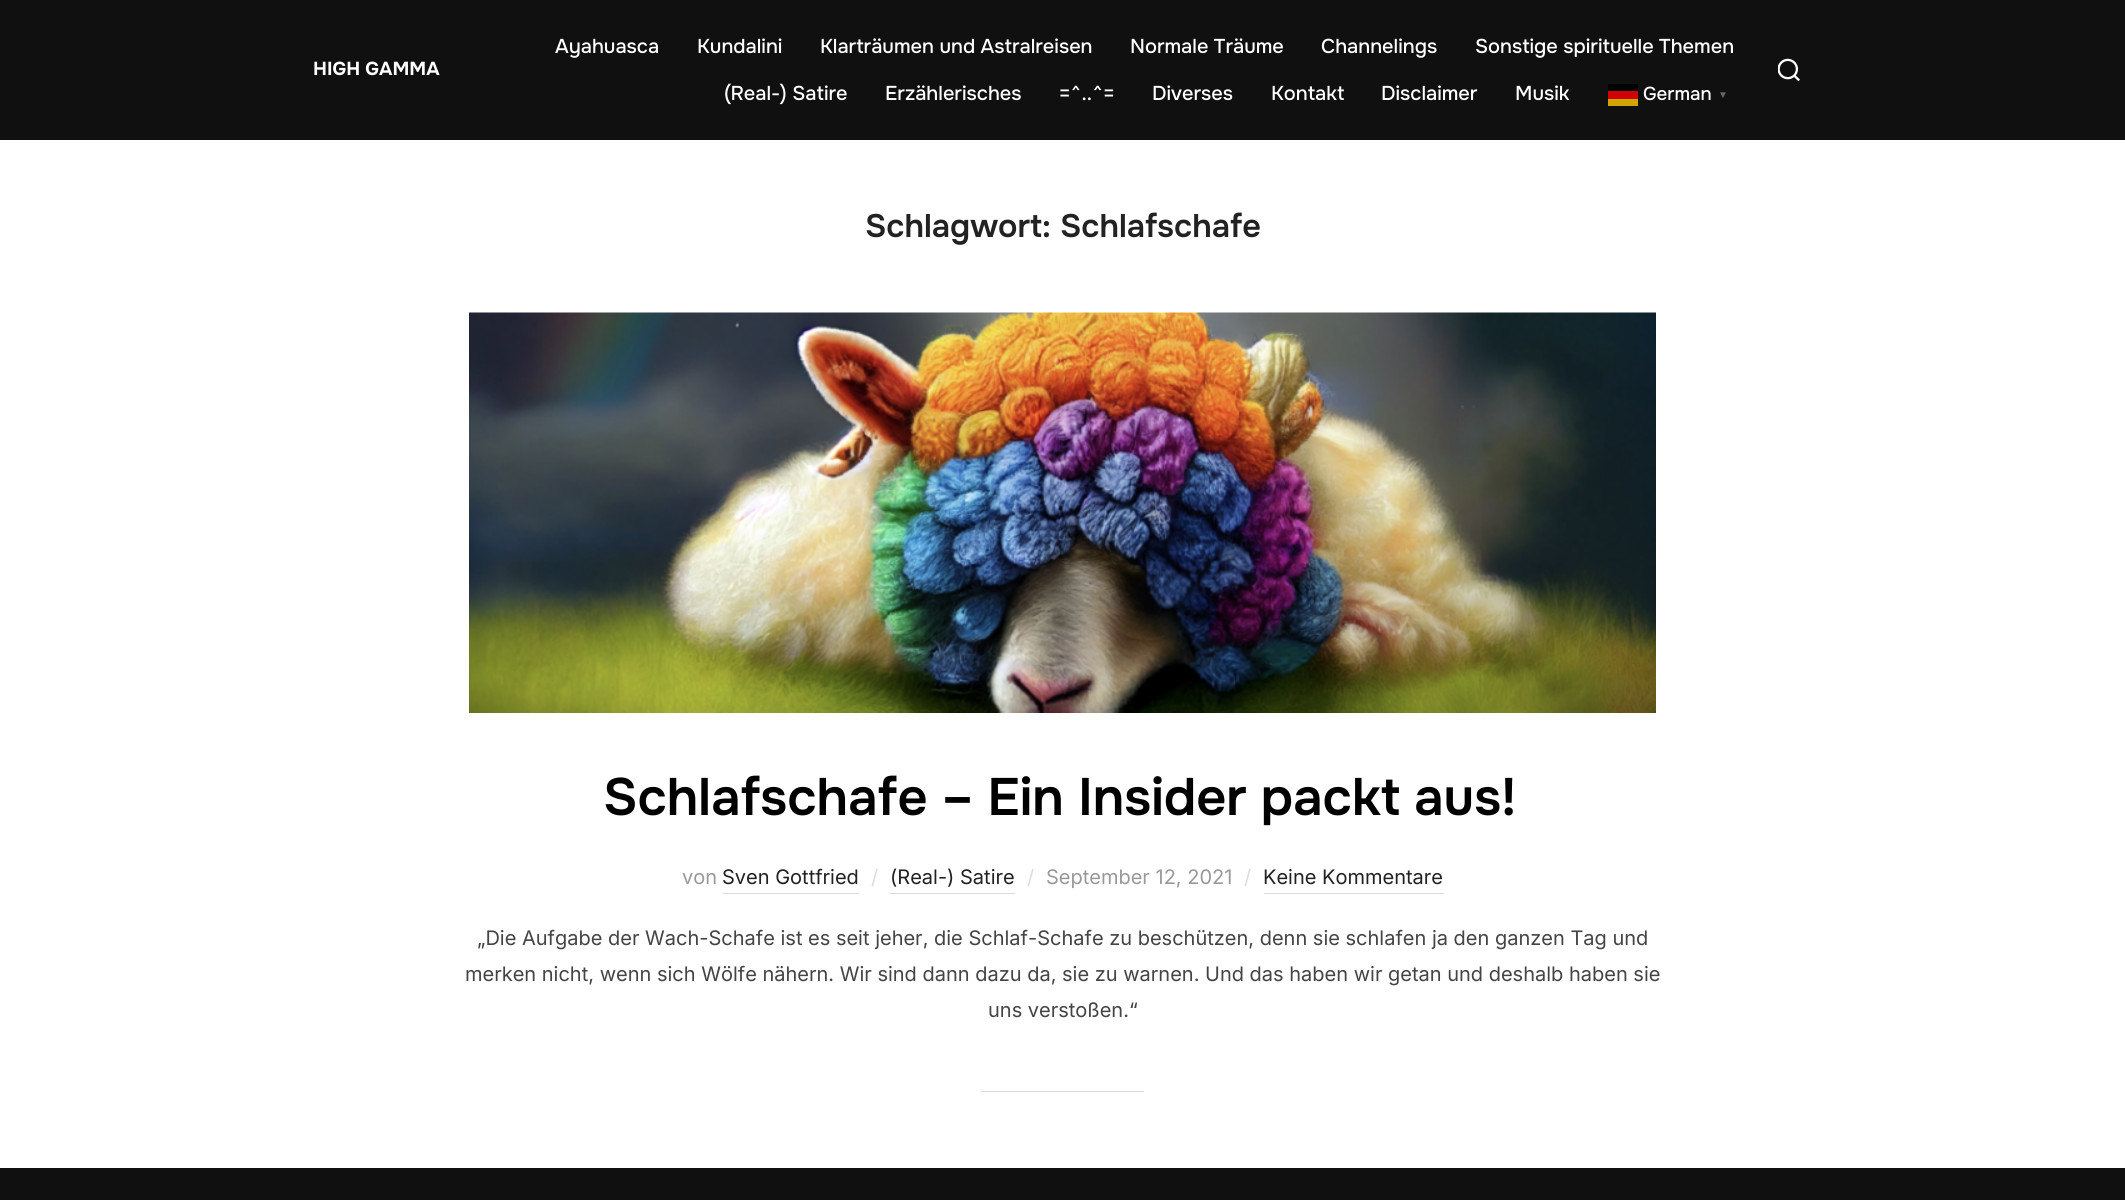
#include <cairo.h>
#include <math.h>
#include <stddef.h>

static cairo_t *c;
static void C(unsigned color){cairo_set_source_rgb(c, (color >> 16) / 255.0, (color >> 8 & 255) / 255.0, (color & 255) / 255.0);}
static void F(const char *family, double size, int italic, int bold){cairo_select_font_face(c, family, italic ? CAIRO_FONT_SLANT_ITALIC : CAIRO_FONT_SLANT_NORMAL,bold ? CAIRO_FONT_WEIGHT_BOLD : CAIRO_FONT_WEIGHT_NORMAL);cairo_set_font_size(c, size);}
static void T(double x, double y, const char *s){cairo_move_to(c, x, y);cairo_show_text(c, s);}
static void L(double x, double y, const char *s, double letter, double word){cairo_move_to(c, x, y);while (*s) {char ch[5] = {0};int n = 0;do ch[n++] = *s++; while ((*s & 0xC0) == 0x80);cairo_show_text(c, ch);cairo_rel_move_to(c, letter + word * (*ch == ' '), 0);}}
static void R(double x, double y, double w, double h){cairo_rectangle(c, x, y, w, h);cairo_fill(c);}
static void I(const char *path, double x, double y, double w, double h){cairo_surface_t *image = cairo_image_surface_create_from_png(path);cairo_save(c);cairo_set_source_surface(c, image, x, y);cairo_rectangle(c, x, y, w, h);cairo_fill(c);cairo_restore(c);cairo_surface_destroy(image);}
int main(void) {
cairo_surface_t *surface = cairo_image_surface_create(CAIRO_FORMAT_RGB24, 2125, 1200);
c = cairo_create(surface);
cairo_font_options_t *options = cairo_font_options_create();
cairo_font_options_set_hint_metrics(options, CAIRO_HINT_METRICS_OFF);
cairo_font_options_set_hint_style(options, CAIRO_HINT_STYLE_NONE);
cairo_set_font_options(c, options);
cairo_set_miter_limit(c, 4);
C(0xffffff);
cairo_paint(c);
C(0x101010);
R(0,0,2125,140);
F("Onest",18.75,0,1);
C(0xffffff);
T(313,75,"HIGH GAMMA");
F("Onest Medium",20,0,0);
T(555,53,"Ayahuasca");
T(697,53,"Kundalini");
T(820,53,"Klarträumen und Astralreisen");
T(1130,53,"Normale Träume");
T(1321,53,"Channelings");
T(1475,53,"Sonstige spirituelle Themen");
T(724,100,"(Real-) Satire");
T(885,100,"Erzählerisches");
T(1059,100,"=^..^=");
T(1152,100,"Diverses");
T(1271,100,"Kontakt");
T(1381,100,"Disclaimer");
T(1515,100,"Musik");
C(0x030303);
R(1608,84,30,7);
F("Onest Medium",18.75,0,0);
C(0xffffff);
T(1643,100,"German");
C(0xcf0303);
R(1608,91,30,8);
F("Liberation Sans",10,0,1);
C(0x666666);
T(1718,98,"▼");
C(0xcfa603);
R(1608,99,30,7);
I("1.png",1778,58,22,24);
F("Onest SemiBold",32.5,0,0);
C(0x222222);
T(865,237,"Schlagwort: Schlafschafe");
I("2.png",469,312,1187,401);
F("Onest SemiBold",52.5,0,0);
C(0x000000);
L(603,815,"Schlafschafe – Ein Insider packt aus!",0,-.5);
F("Inter",20,0,0);
C(0x999999);
T(682,884,"von");
C(0x222222);
T(722,884,"Sven Gottfried");
C(0xdbdbdb);
R(723,893,136,1);
C(0xdbdddd);
T(871,884,"/");
C(0x222222);
T(890,884,"(Real-) Satire");
C(0xdbdbdb);
R(890,893,125,1);
C(0xdbdddd);
T(1027,884,"/");
C(0x999999);
T(1046,884,"September 12, 2021");
C(0xdbdddd);
T(1244,884,"/");
C(0x222222);
T(1263,884,"Keine Kommentare");
C(0xdbdbdb);
R(1264,893,180,1);
C(0x444444);
T(477,945,"„Die Aufgabe der Wach-Schafe ist es seit jeher, die Schlaf-Schafe zu beschützen, denn sie schlafen ja den ganzen Tag und");
T(465,981,"merken nicht, wenn sich Wölfe nähern. Wir sind dann dazu da, sie zu warnen. Und das haben wir getan und deshalb haben sie");
T(988,1017,"uns verstoßen.“");
C(0xdbdbdb);
R(981,1091,163,1);
C(0x101010);
R(0,1168,2125,32);
cairo_surface_write_to_png(surface, "o.png");
cairo_font_options_destroy(options);
cairo_destroy(c);
cairo_surface_destroy(surface);
return 0;
}
